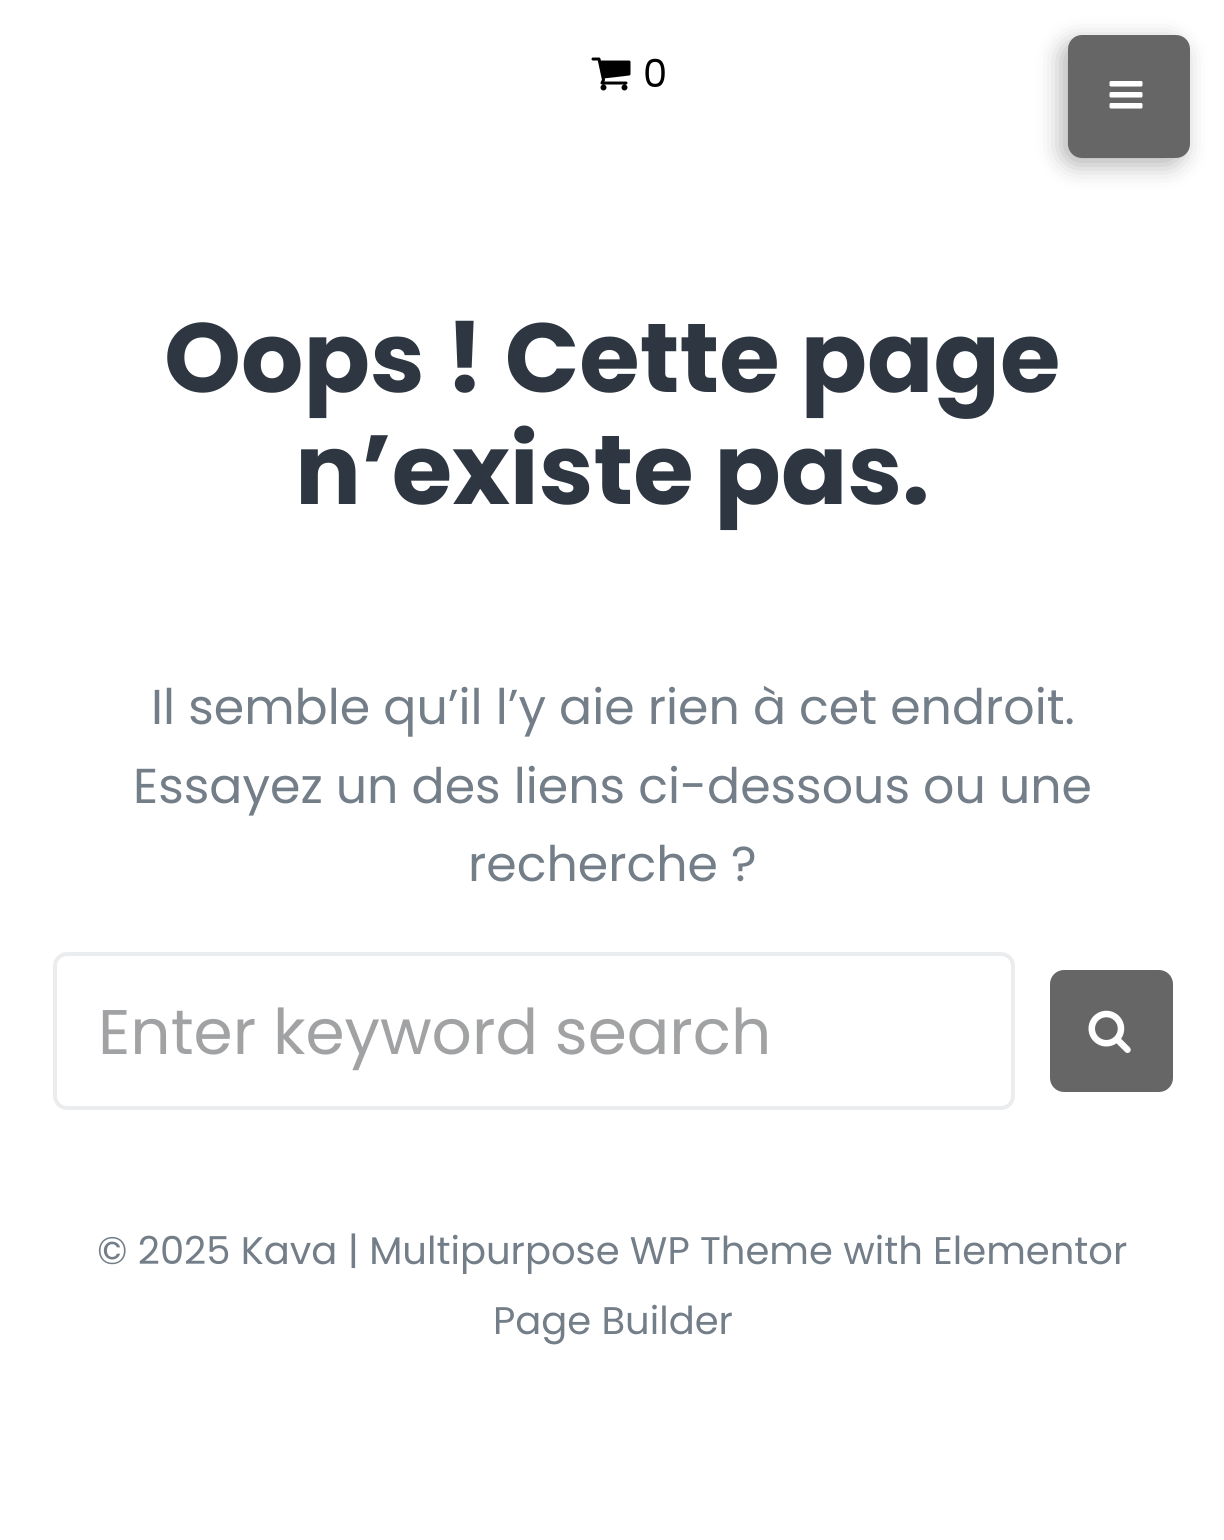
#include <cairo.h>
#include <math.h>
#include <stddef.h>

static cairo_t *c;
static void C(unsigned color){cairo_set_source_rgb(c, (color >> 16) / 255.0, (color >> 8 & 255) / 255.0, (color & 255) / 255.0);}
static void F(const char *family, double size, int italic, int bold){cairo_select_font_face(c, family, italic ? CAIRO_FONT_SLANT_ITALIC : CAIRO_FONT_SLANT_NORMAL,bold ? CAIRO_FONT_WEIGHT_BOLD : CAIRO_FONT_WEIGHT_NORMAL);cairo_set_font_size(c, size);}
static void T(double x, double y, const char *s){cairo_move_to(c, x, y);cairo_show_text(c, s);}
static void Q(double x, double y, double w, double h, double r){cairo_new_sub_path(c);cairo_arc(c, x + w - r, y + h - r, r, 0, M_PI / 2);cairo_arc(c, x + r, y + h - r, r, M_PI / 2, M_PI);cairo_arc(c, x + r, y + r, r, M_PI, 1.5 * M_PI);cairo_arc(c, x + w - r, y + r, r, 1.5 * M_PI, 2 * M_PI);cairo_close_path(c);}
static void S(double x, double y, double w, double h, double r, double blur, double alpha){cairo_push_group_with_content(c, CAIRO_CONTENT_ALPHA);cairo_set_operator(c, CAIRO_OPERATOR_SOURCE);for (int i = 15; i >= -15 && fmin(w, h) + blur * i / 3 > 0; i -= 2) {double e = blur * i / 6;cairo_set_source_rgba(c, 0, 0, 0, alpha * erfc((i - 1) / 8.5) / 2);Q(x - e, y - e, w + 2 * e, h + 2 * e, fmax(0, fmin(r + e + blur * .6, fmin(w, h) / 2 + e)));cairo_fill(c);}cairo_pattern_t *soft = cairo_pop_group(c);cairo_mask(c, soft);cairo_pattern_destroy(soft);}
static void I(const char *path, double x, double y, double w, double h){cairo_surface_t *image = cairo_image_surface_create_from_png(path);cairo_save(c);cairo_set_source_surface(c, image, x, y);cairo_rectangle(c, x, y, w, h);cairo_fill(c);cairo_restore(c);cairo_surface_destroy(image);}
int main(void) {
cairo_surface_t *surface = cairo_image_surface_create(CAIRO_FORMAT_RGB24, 1224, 1540);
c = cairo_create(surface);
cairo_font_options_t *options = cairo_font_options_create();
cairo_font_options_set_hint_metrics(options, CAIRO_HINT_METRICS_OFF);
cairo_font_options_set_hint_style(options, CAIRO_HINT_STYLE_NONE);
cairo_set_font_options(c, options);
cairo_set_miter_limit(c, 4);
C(0xffffff);
cairo_paint(c);
I("1.png",591,57,40,34);
F("Poppins",38.5,0,0);
C(0x000000);
T(643,87,"0");
C(0x000000);
S(1061,42,122,123,14,12,.3);
C(0x666666);
Q(1068,35,122,123,14);
cairo_fill(c);
I("2.png",1109,81,34,28);
F("Poppins",98,0,1);
C(0x2e3741);
T(164,392,"Oops ! Cette page");
T(295,504,"n’existe pas.");
F("Poppins",49,0,0);
C(0x737e89);
T(151,724,"Il semble qu’il l’y aie rien à cet endroit.");
T(133,803,"Essayez un des liens ci-dessous ou une");
T(468,881,"recherche ?");
Q(55,954,958,154,12);
C(0xebeced);
cairo_set_line_width(c,4);
cairo_stroke(c);
F("Poppins",63,0,0);
C(0xa1a2a4);
T(98,1054,"Enter keyword search");
C(0x666666);
Q(1050,970,123,122,14);
cairo_fill(c);
I("3.png",1088,1010,43,43);
F("Poppins",38.5,0,0);
C(0x737e89);
T(97,1264,"© 2025 Kava | Multipurpose WP Theme with Elementor");
T(493,1334,"Page Builder");
cairo_surface_write_to_png(surface, "o.png");
cairo_font_options_destroy(options);
cairo_destroy(c);
cairo_surface_destroy(surface);
return 0;
}
